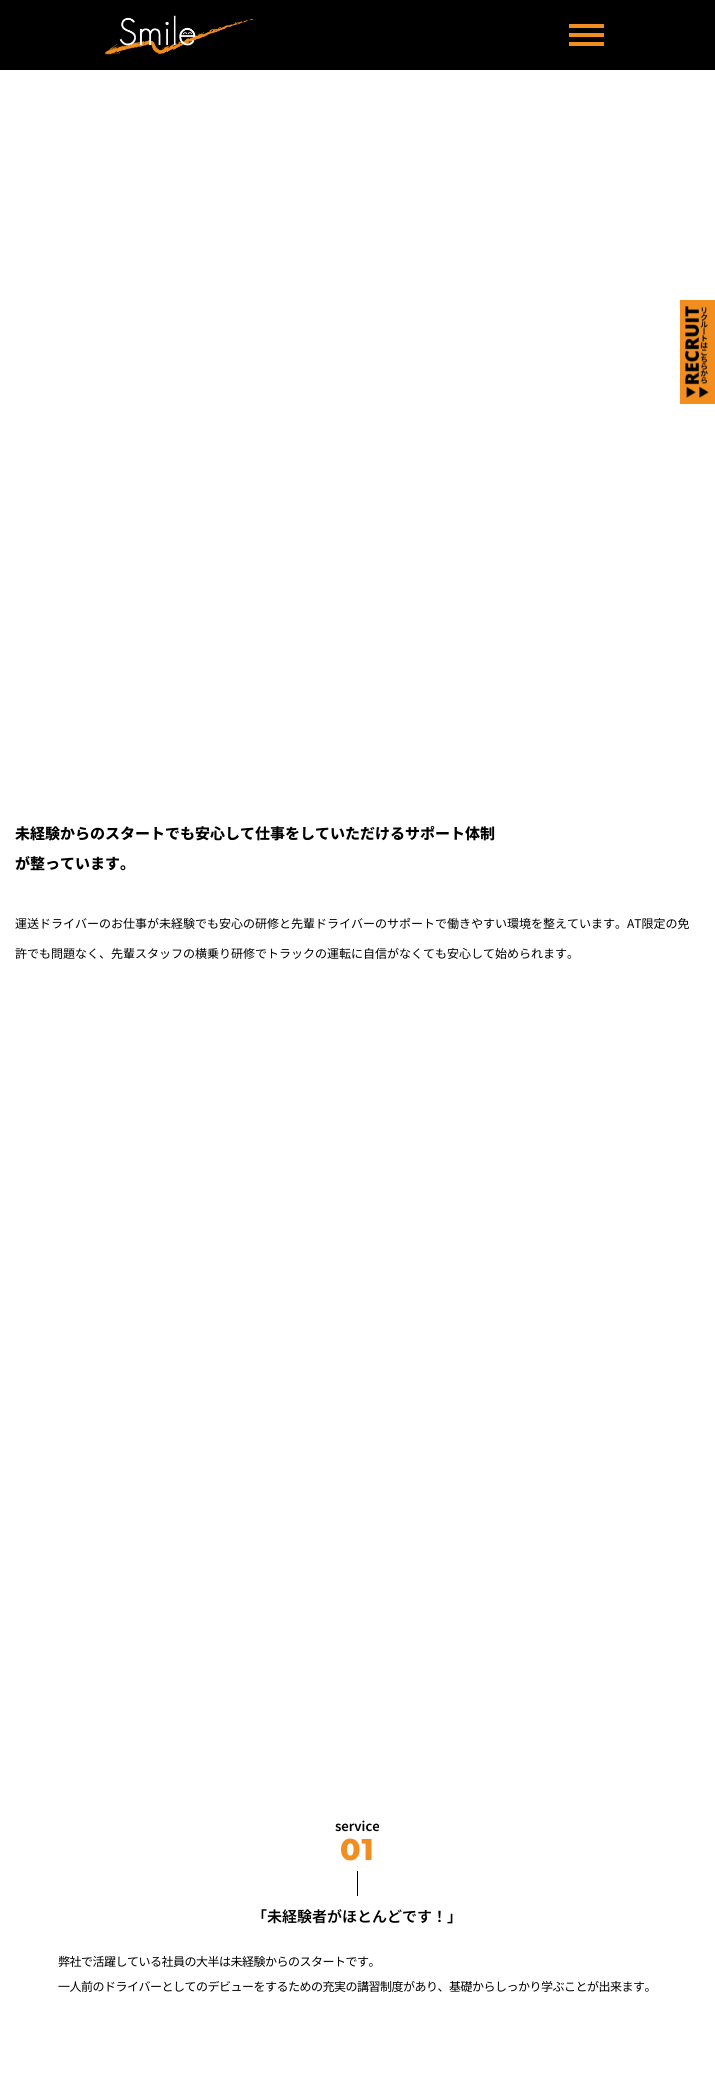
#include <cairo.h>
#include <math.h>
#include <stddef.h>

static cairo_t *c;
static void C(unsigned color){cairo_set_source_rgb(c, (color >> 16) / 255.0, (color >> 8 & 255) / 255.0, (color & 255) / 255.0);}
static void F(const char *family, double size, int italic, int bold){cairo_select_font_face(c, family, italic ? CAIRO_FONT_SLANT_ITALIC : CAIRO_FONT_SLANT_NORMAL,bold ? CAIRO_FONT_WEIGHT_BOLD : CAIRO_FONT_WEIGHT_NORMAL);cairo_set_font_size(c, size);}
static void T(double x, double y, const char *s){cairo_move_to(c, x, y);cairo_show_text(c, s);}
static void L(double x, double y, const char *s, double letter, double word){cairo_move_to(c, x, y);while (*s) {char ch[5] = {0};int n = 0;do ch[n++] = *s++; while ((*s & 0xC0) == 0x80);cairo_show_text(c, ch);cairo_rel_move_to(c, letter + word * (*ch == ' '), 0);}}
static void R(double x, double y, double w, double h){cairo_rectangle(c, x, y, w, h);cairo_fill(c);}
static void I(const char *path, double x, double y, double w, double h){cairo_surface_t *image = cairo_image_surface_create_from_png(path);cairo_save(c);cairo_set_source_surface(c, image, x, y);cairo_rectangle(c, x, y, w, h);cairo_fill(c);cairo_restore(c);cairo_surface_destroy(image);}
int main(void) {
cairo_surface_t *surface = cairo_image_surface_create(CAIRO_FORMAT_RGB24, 715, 2079);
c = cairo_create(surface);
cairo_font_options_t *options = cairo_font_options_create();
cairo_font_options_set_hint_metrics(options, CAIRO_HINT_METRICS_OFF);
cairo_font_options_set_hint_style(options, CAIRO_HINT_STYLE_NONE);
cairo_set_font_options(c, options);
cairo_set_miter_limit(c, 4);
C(0xffffff);
cairo_paint(c);
C(0x000000);
R(0,0,715,70);
I("1.png",104,15,150,40);
C(0xf18e1f);
R(569,24,35,4);
R(569,33,35,4);
R(569,42,35,4);
I("2.png",680,300,35,104);
F("Noto Sans JP ExtraBold",15,0,0);
C(0x000000);
T(15,839,"未経験からのスタートでも安心して仕事をしていただけるサポート体制");
T(15,869,"が整っています。");
F("Noto Sans JP",12,0,0);
T(15,928,"運送ドライバーのお仕事が未経験でも安心の研修と先輩ドライバーのサポートで働きやすい環境を整えています。AT限定の免");
T(15,958,"許でも問題なく、先輩スタッフの横乗り研修でトラックの運転に自信がなくても安心して始められます。");
F("Noto Sans JP SemiBold",13,0,0);
T(335,1831,"service");
F("Montserrat ExtraBold",30,0,0);
C(0xf18e1f);
L(340,1860,"01",1,0);
F("Noto Sans JP Thin",25,0,0);
C(0x000000);
T(345,1893,"│");
F("Noto Sans JP SemiBold",15,0,0);
T(252,1922,"「未経験者がほとんどです！」");
F("Noto Sans JP",12,0,0);
L(58,1966,"弊社で活躍している社員の大半は未経験からのスタートです。",-.5,0);
L(58,1991,"一人前のドライバーとしてのデビューをするための充実の講習制度があり、基礎からしっかり学ぶことが出来ます。",-.5,0);
cairo_surface_write_to_png(surface, "o.png");
cairo_font_options_destroy(options);
cairo_destroy(c);
cairo_surface_destroy(surface);
return 0;
}
